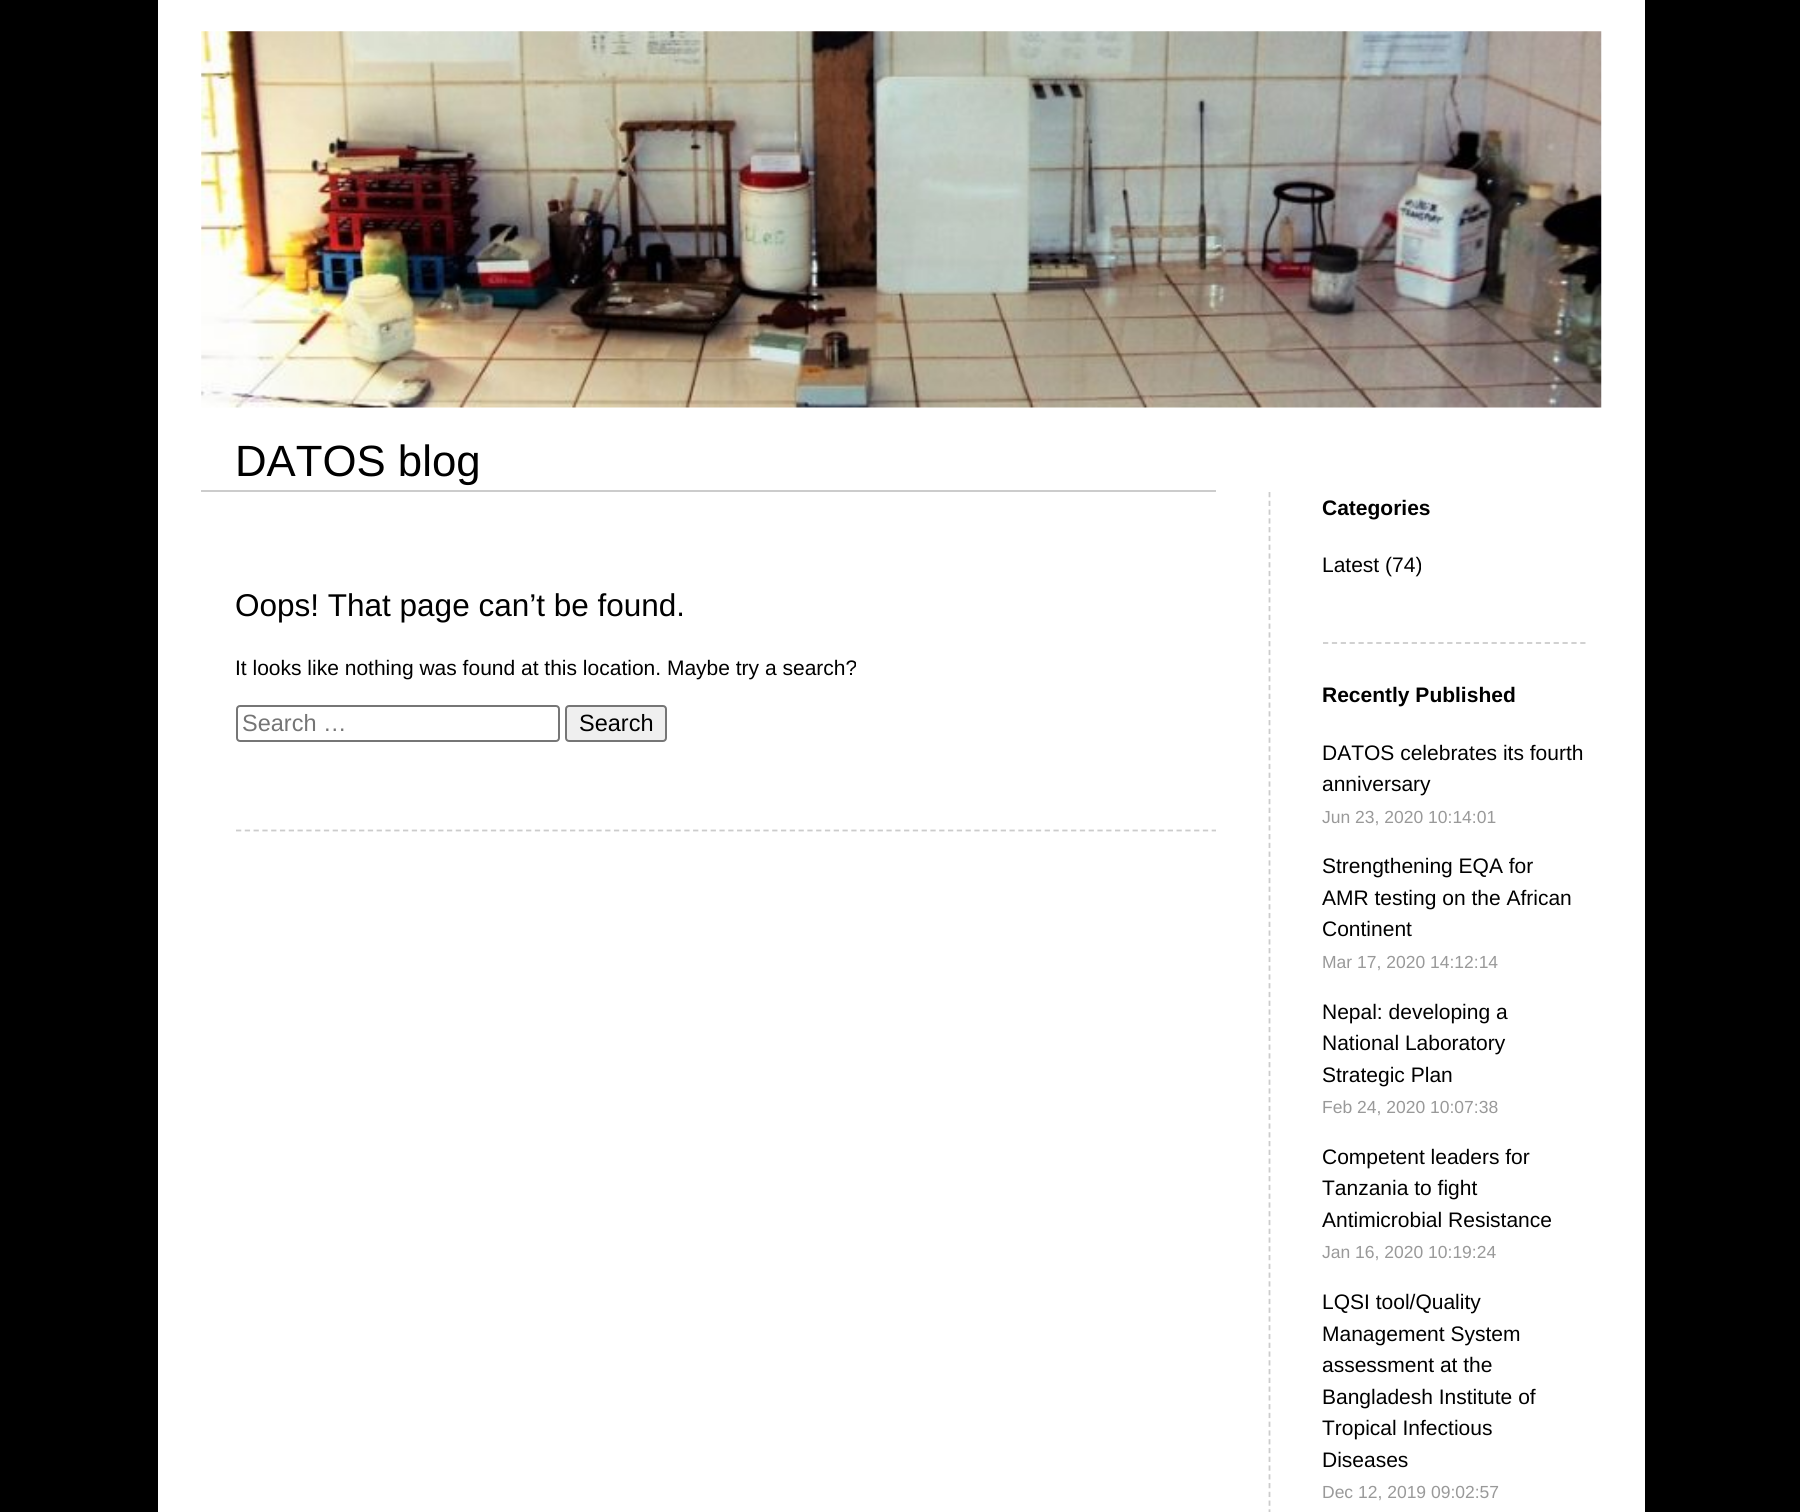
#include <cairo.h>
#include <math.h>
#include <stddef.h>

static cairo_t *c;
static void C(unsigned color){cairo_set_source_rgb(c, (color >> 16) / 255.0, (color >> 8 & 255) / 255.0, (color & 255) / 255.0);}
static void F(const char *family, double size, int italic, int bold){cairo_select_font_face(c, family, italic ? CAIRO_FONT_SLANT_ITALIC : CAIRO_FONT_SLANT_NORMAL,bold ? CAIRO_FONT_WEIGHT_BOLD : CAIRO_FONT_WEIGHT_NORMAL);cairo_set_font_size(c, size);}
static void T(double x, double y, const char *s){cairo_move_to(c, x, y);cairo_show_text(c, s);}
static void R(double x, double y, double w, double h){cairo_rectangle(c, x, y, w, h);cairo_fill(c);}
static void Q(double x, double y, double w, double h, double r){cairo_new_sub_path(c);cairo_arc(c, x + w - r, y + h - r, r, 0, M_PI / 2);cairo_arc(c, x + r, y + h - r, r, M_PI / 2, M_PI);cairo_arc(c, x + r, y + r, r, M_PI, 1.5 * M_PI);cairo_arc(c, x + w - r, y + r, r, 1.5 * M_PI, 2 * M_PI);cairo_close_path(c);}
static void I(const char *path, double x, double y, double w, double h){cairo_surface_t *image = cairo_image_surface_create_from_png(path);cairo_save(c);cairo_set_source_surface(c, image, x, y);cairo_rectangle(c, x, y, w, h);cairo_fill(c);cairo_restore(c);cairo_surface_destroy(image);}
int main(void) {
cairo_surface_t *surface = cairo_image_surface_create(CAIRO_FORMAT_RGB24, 1800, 1512);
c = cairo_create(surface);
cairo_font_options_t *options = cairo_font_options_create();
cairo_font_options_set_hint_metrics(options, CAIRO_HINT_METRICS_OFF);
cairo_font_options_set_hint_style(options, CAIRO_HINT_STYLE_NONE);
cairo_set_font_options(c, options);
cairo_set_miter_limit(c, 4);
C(0x000000);
cairo_paint(c);
C(0xffffff);
R(158,0,1487,1512);
I("1.png",201,31,1401,377);
C(0xcccccc);
R(201,490,1015,2);
F("Liberation Sans",43.75,0,0);
C(0x000000);
T(235,476,"DATOS blog");
cairo_new_path(c);
cairo_move_to(c,236,830.5);
cairo_line_to(c,1216,830.5);
C(0xcccccc);
cairo_set_line_width(c,1.8);
cairo_set_dash(c,(double[]){5.25,3.54},2,0);
cairo_stroke(c);
F("Liberation Sans",31.5,0,0);
C(0x000000);
T(235,616,"Oops! That page can’t be found.");
F("Liberation Sans",21,0,0);
T(235,675,"It looks like nothing was found at this location. Maybe try a search?");
Q(237,706,322,35,3);
C(0x767676);
cairo_set_line_width(c,2);
cairo_set_dash(c,NULL,0,0);
cairo_stroke(c);
F("Liberation Sans",23.5,0,0);
C(0x757575);
T(242,731,"Search …");
C(0xefefef);
Q(566,706,100,35,3);
cairo_fill_preserve(c);
C(0x767676);
cairo_stroke(c);
C(0x000000);
T(579,731,"Search");
cairo_new_path(c);
cairo_move_to(c,1269.5,492);
cairo_line_to(c,1269.5,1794);
C(0xcccccc);
cairo_set_line_width(c,1.8);
cairo_set_dash(c,(double[]){5.25,3.52},2,0);
cairo_stroke(c);
cairo_new_path(c);
cairo_move_to(c,1323,643);
cairo_line_to(c,1585.5,643);
cairo_set_dash(c,(double[]){5.25,3.62},2,0);
cairo_stroke(c);
F("Liberation Sans",21,0,1);
C(0x000000);
T(1322,515,"Categories");
F("Liberation Sans",21,0,0);
T(1322,572,"Latest (74)");
F("Liberation Sans",21,0,1);
T(1322,702,"Recently Published");
F("Liberation Sans",21,0,0);
T(1322,760,"DATOS celebrates its fourth");
T(1322,791,"anniversary");
F("Liberation Sans",17.5,0,0);
C(0x999999);
T(1322,823,"Jun 23, 2020 10:14:01");
F("Liberation Sans",21,0,0);
C(0x000000);
T(1322,873,"Strengthening EQA for");
T(1322,905,"AMR testing on the African");
T(1322,936,"Continent");
F("Liberation Sans",17.5,0,0);
C(0x999999);
T(1322,968,"Mar 17, 2020 14:12:14");
F("Liberation Sans",21,0,0);
C(0x000000);
T(1322,1019,"Nepal: developing a");
T(1322,1050,"National Laboratory");
T(1322,1082,"Strategic Plan");
F("Liberation Sans",17.5,0,0);
C(0x999999);
T(1322,1113,"Feb 24, 2020 10:07:38");
F("Liberation Sans",21,0,0);
C(0x000000);
T(1322,1164,"Competent leaders for");
T(1322,1195,"Tanzania to fight");
T(1322,1227,"Antimicrobial Resistance");
F("Liberation Sans",17.5,0,0);
C(0x999999);
T(1322,1258,"Jan 16, 2020 10:19:24");
F("Liberation Sans",21,0,0);
C(0x000000);
T(1322,1309,"LQSI tool/Quality");
T(1322,1341,"Management System");
T(1322,1372,"assessment at the");
T(1322,1404,"Bangladesh Institute of");
T(1322,1435,"Tropical Infectious");
T(1322,1467,"Diseases");
F("Liberation Sans",17.5,0,0);
C(0x999999);
T(1322,1498,"Dec 12, 2019 09:02:57");
cairo_surface_write_to_png(surface, "o.png");
cairo_font_options_destroy(options);
cairo_destroy(c);
cairo_surface_destroy(surface);
return 0;
}
